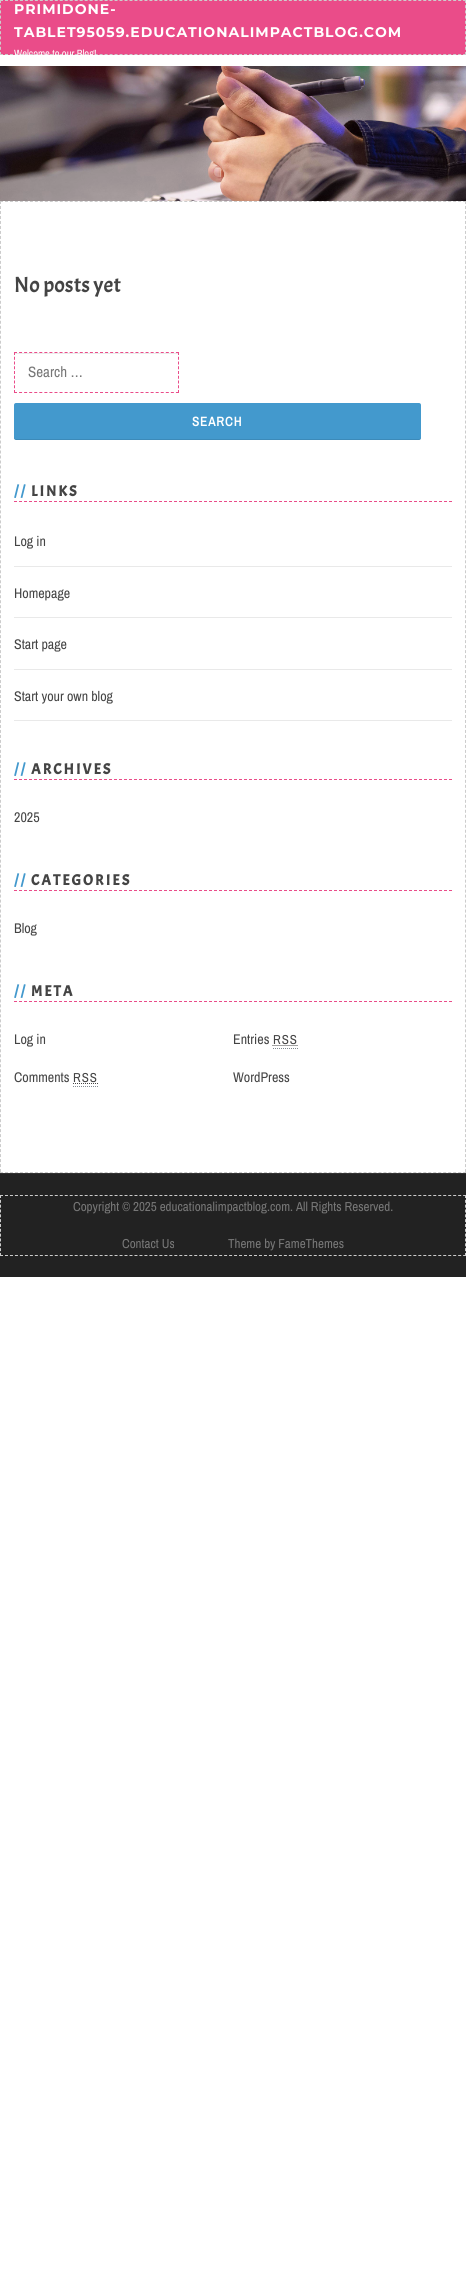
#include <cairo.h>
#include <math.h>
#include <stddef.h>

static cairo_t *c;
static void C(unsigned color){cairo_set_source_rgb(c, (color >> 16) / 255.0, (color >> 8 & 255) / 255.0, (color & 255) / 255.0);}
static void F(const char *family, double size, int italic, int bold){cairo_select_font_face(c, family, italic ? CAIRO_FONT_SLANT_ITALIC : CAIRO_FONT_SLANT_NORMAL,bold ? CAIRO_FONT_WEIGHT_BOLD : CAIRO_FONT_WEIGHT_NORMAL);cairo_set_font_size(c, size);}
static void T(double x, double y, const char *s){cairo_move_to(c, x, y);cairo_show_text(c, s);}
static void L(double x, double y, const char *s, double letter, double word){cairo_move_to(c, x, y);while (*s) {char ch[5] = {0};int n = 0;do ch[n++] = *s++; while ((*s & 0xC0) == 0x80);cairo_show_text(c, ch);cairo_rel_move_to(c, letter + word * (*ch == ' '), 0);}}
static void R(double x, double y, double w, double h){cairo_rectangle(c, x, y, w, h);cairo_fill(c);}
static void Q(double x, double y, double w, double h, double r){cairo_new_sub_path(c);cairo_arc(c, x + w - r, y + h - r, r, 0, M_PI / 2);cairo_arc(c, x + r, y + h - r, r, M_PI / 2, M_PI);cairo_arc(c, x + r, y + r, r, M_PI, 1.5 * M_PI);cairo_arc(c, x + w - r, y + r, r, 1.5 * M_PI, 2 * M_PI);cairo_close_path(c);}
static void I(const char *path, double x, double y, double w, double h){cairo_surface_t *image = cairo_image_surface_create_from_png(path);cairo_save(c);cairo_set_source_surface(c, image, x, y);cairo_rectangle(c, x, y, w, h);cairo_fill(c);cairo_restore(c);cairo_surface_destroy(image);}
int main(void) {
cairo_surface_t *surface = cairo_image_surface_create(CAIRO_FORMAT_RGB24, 466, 2296);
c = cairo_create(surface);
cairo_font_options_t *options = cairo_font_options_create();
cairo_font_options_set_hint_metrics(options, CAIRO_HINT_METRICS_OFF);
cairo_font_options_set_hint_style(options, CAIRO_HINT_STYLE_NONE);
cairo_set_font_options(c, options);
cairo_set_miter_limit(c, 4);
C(0xffffff);
cairo_paint(c);
C(0xea4c89);
R(0,0,466,55);
cairo_new_path(c);
cairo_move_to(c,0,.5);
cairo_line_to(c,466,.5);
C(0xcccccc);
cairo_set_line_width(c,1);
cairo_set_dash(c,(double[]){3,1.98},2,0);
cairo_stroke(c);
cairo_new_path(c);
cairo_move_to(c,465.5,0);
cairo_line_to(c,465.5,55);
cairo_set_dash(c,(double[]){3,2.2},2,0);
cairo_stroke(c);
cairo_new_path(c);
cairo_move_to(c,0,54.5);
cairo_line_to(c,466,54.5);
cairo_set_dash(c,(double[]){3,1.98},2,0);
cairo_stroke(c);
cairo_new_path(c);
cairo_move_to(c,.5,0);
cairo_line_to(c,.5,55);
cairo_set_dash(c,(double[]){3,2.2},2,0);
cairo_stroke(c);
F("Montserrat",14,0,1);
C(0xffffff);
L(14,14,"PRIMIDONE-",1,0);
L(14,37,"TABLET95059.EDUCATIONALIMPACTBLOG.COM",1,0);
F("Archivo Narrow",10.5,0,0);
T(14,57,"Welcome to our Blog!");
I("1.png",0,66,466,135);
cairo_new_path(c);
cairo_move_to(c,0,201.5);
cairo_line_to(c,466,201.5);
C(0xcccccc);
cairo_set_dash(c,(double[]){3,1.98},2,0);
cairo_stroke(c);
cairo_new_path(c);
cairo_move_to(c,465.5,201);
cairo_line_to(c,465.5,1173);
cairo_set_dash(c,(double[]){3,1.99},2,0);
cairo_stroke(c);
cairo_new_path(c);
cairo_move_to(c,0,1172.5);
cairo_line_to(c,466,1172.5);
cairo_set_dash(c,(double[]){3,1.98},2,0);
cairo_stroke(c);
cairo_new_path(c);
cairo_move_to(c,.5,201);
cairo_line_to(c,.5,1173);
cairo_set_dash(c,(double[]){3,1.99},2,0);
cairo_stroke(c);
F("Acme",22,0,0);
C(0x444444);
T(14,292,"No posts yet");
C(0xebebeb);
R(15,353,163,1);
cairo_new_path(c);
cairo_move_to(c,14,352.5);
cairo_line_to(c,179,352.5);
C(0xea4c89);
cairo_set_dash(c,(double[]){3,2.06},2,0);
cairo_stroke(c);
cairo_new_path(c);
cairo_move_to(c,178.5,352);
cairo_line_to(c,178.5,393);
cairo_set_dash(c,(double[]){3,1.75},2,0);
cairo_stroke(c);
cairo_new_path(c);
cairo_move_to(c,14,392.5);
cairo_line_to(c,179,392.5);
cairo_set_dash(c,(double[]){3,2.06},2,0);
cairo_stroke(c);
cairo_new_path(c);
cairo_move_to(c,14.5,352);
cairo_line_to(c,14.5,393);
cairo_set_dash(c,(double[]){3,1.75},2,0);
cairo_stroke(c);
F("Archivo Narrow",15,0,0);
C(0x777777);
T(28,377,"Search …");
C(0x4399cd);
Q(14,403,407,37,2);
cairo_fill(c);
cairo_set_source_rgba(c,0,0,0,0.1);
cairo_new_path(c);
cairo_move_to(c,14,437);
cairo_line_to(c,14,439);
cairo_line_to(c,16,440);
cairo_line_to(c,420,440);
cairo_curve_to(c,421,439,421,438,421,437);
cairo_curve_to(c,421,438,420,439,419,439);
cairo_line_to(c,16,439);
cairo_curve_to(c,15,439,14,438,14,437);
cairo_close_path(c);
cairo_fill(c);
F("Archivo Narrow",13,0,1);
C(0xffffff);
L(192,426,"SEARCH",1,0);
cairo_new_path(c);
cairo_move_to(c,14,501.5);
cairo_line_to(c,452,501.5);
C(0xea4c89);
cairo_set_dash(c,(double[]){3,2},2,0);
cairo_stroke(c);
F("Acme",15,0,1);
C(0x4399cd);
L(14,496,"//",2,0);
C(0x444444);
L(31,496,"LINKS",2,0);
C(0xe9e9e9);
R(14,566,438,1);
F("Archivo Narrow",14,0,0);
C(0x444444);
T(14,546,"Log in");
C(0xe9e9e9);
R(14,617,438,1);
C(0x444444);
T(14,598,"Homepage");
C(0xe9e9e9);
R(14,669,438,1);
C(0x444444);
T(14,649,"Start page");
C(0xe9e9e9);
R(14,720,438,1);
C(0x444444);
T(14,701,"Start your own blog");
cairo_new_path(c);
cairo_move_to(c,14,779.5);
cairo_line_to(c,452,779.5);
C(0xea4c89);
cairo_stroke(c);
F("Acme",15,0,1);
C(0x4399cd);
L(14,774,"//",2,0);
C(0x444444);
L(31,774,"ARCHIVES",2,0);
F("Archivo Narrow",14,0,0);
T(14,822,"2025");
cairo_new_path(c);
cairo_move_to(c,14,890.5);
cairo_line_to(c,452,890.5);
C(0xea4c89);
cairo_stroke(c);
F("Acme",15,0,1);
C(0x4399cd);
L(14,885,"//",2,0);
C(0x444444);
L(31,885,"CATEGORIES",2,0);
F("Archivo Narrow",14,0,0);
T(14,933,"Blog");
cairo_new_path(c);
cairo_move_to(c,14,1001.5);
cairo_line_to(c,452,1001.5);
C(0xea4c89);
cairo_stroke(c);
F("Acme",15,0,1);
C(0x4399cd);
L(14,996,"//",2,0);
C(0x444444);
L(31,996,"META",2,0);
F("Archivo Narrow",14,0,0);
T(14,1044,"Log in");
T(233,1044,"Entries");
F("Archivo Narrow",13,0,0);
L(273,1044,"RSS",1,0);
cairo_new_path(c);
cairo_move_to(c,273,1048.5);
cairo_line_to(c,298,1048.5);
C(0x818a91);
cairo_set_dash(c,(double[]){1,1},2,0);
cairo_stroke(c);
cairo_new_path(c);
cairo_move_to(c,272.5,1045.5);
cairo_line_to(c,298,1045.5);
C(0x444444);
cairo_stroke(c);
F("Archivo Narrow",14,0,0);
T(14,1082,"Comments");
F("Archivo Narrow",13,0,0);
L(73,1082,"RSS",1,0);
cairo_new_path(c);
cairo_move_to(c,73,1086.5);
cairo_line_to(c,98,1086.5);
C(0x818a91);
cairo_stroke(c);
cairo_new_path(c);
cairo_move_to(c,73,1083.5);
cairo_line_to(c,98,1083.5);
C(0x444444);
cairo_stroke(c);
F("Archivo Narrow",14,0,0);
T(233,1082,"WordPress");
C(0x222222);
R(0,1174,466,103);
C(0x333333);
R(0,1173,466,1);
cairo_new_path(c);
cairo_move_to(c,0,1195.5);
cairo_line_to(c,466,1195.5);
C(0xcccccc);
cairo_set_dash(c,(double[]){3,1.98},2,0);
cairo_stroke(c);
cairo_new_path(c);
cairo_move_to(c,465.5,1195);
cairo_line_to(c,465.5,1256);
cairo_set_dash(c,(double[]){3,1.83},2,0);
cairo_stroke(c);
cairo_new_path(c);
cairo_move_to(c,0,1255.5);
cairo_line_to(c,466,1255.5);
cairo_set_dash(c,(double[]){3,1.98},2,0);
cairo_stroke(c);
cairo_new_path(c);
cairo_move_to(c,.5,1195);
cairo_line_to(c,.5,1256);
cairo_set_dash(c,(double[]){3,1.83},2,0);
cairo_stroke(c);
F("Archivo Narrow",13,0,0);
C(0x777777);
T(73,1211,"Copyright © 2025 educationalimpactblog.com. All Rights Reserved.");
T(122,1248,"Contact Us");
T(228,1248,"Theme by FameThemes");
cairo_surface_write_to_png(surface, "o.png");
cairo_font_options_destroy(options);
cairo_destroy(c);
cairo_surface_destroy(surface);
return 0;
}
